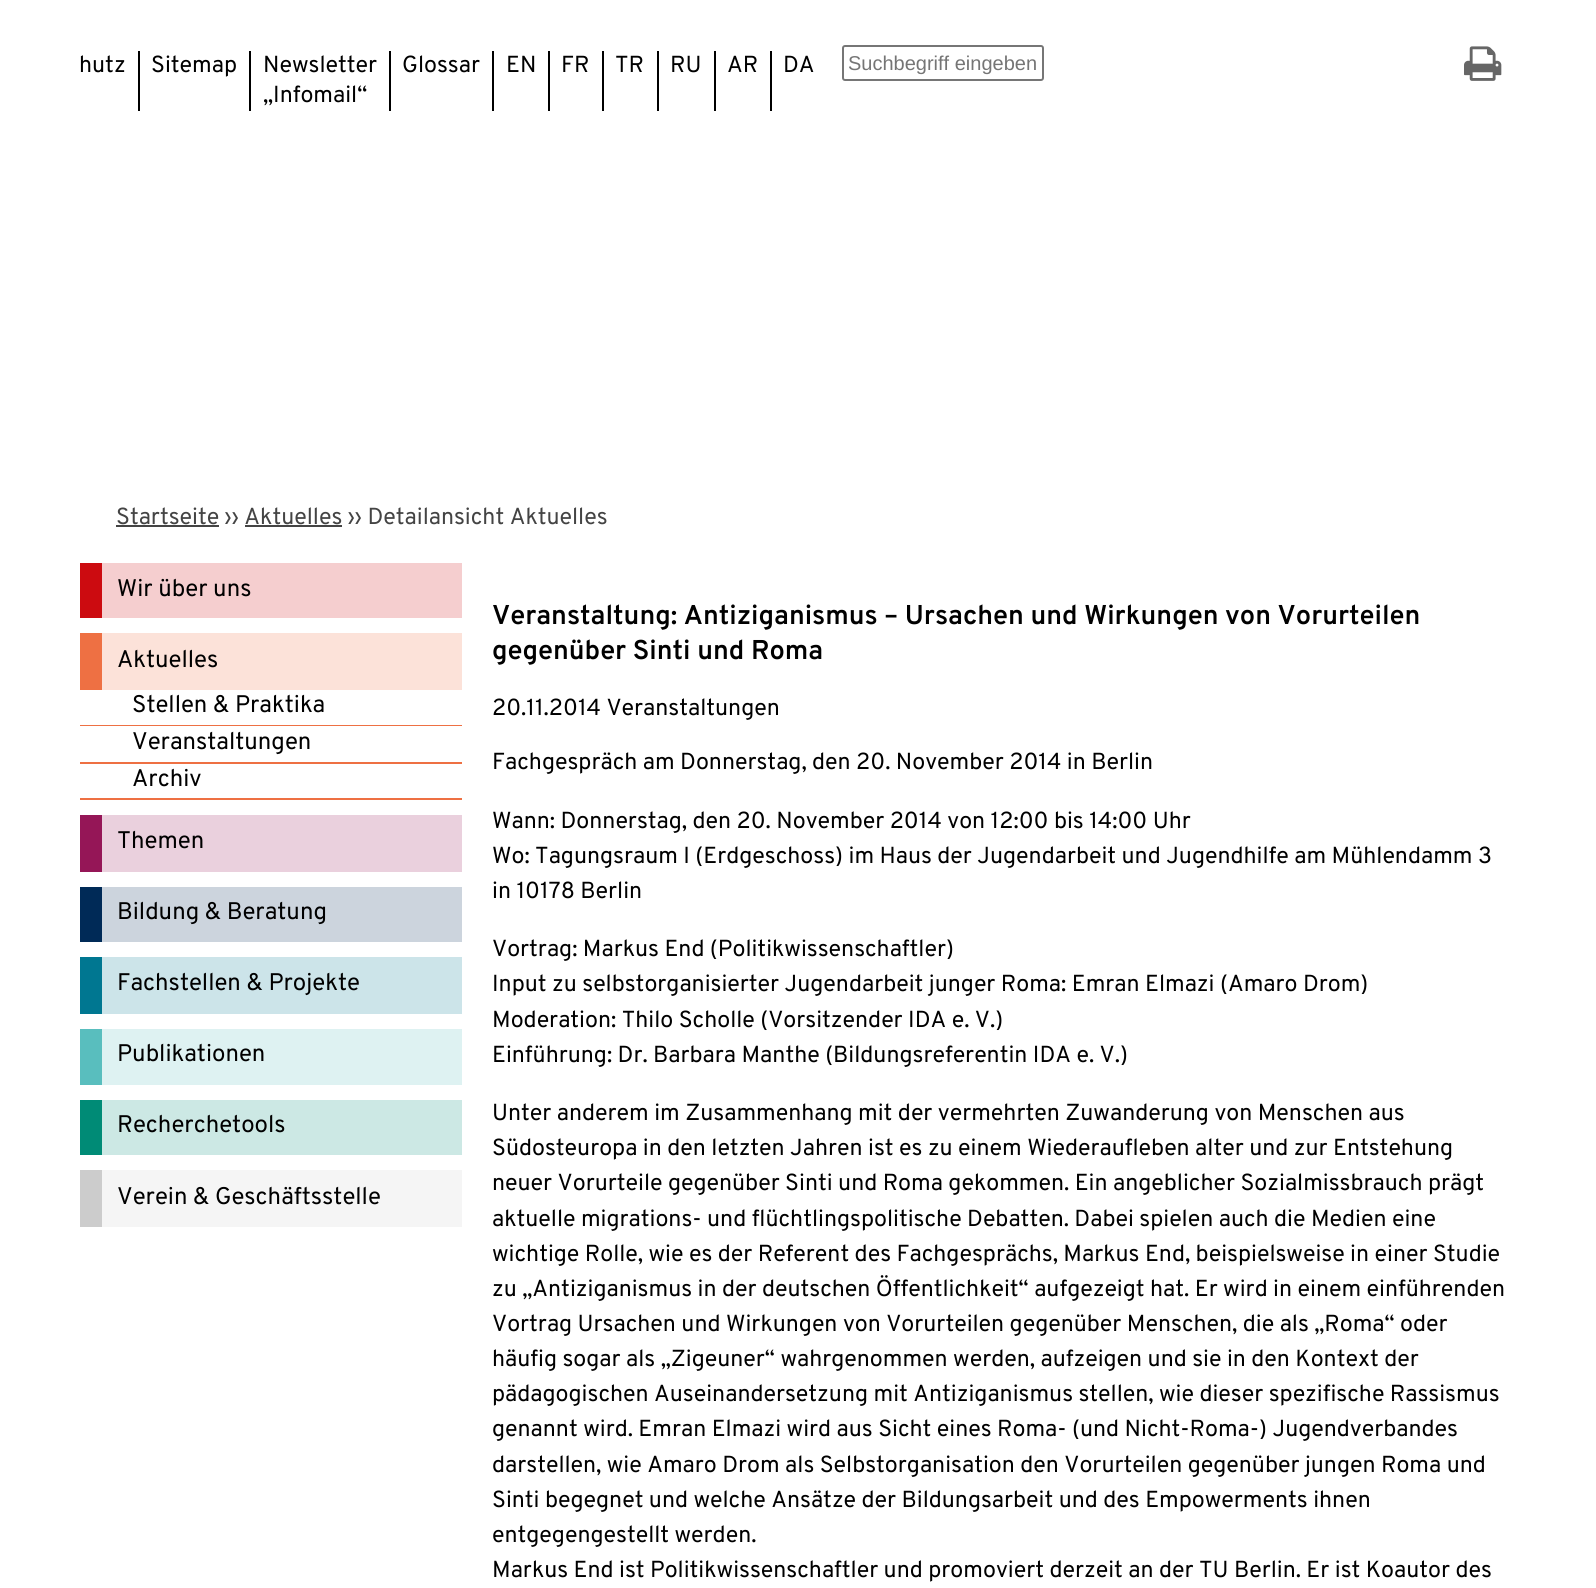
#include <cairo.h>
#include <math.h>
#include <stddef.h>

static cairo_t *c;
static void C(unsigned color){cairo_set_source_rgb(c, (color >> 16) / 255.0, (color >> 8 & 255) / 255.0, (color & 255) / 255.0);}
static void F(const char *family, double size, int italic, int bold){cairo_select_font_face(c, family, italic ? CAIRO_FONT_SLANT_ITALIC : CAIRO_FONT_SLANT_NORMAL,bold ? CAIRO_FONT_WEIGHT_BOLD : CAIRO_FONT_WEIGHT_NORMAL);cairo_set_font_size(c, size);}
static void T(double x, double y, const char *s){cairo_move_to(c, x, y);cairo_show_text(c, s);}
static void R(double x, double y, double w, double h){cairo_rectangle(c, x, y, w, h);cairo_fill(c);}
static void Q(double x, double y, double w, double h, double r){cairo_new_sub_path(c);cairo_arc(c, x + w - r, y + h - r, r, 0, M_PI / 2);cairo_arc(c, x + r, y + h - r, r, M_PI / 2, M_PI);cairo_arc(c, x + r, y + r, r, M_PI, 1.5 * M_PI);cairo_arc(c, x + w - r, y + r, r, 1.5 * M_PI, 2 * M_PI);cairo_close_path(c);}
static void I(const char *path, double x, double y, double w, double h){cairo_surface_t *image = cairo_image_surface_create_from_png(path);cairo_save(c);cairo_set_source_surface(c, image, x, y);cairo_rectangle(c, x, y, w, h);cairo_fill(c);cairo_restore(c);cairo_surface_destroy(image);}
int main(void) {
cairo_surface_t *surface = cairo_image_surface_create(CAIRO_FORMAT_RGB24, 1596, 1588);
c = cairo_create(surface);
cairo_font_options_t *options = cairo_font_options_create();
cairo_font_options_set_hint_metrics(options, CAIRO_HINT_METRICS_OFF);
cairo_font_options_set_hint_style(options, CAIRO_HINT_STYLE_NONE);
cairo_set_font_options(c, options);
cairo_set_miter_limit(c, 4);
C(0xffffff);
cairo_paint(c);
C(0x000000);
R(138,51,2,60);
F("Overpass",23.2,0,0);
T(79,72,"hutz");
R(249,51,2,60);
T(151,72,"Sitemap");
R(389,51,2,60);
T(263,72,"Newsletter");
T(263,102,"„Infomail“");
R(492,51,2,60);
T(402,72,"Glossar");
R(548,51,2,60);
T(506,72,"EN");
R(602,51,2,60);
T(561,72,"FR");
R(657,51,2,60);
T(615,72,"TR");
R(714,51,2,60);
T(670,72,"RU");
R(770,51,2,60);
T(727,72,"AR");
T(783,72,"DA");
Q(843,46,200,34,2);
C(0x767676);
cairo_stroke(c);
F("Liberation Sans",20,0,0);
C(0x757575);
T(848,70,"Suchbegriff eingeben");
I("1.png",1464,46,38,35);
F("Overpass",23.2,0,0);
C(0x444444);
T(116,524,"Startseite ›› Aktuelles ›› Detailansicht Aktuelles");
R(116,525,103,2);
R(245,525,97,2);
C(0xf5cecf);
R(102,563,360,55);
C(0xcc0b10);
R(80,563,22,55);
F("Overpass",24,0,0);
C(0x000000);
T(117,596,"Wir über uns");
C(0xfce2d9);
R(102,633,360,57);
C(0xee7043);
R(80,633,22,57);
C(0x000000);
T(117,667,"Aktuelles");
C(0xee7043);
R(80,725,382,1);
C(0x000000);
T(132,712,"Stellen & Praktika");
C(0xee7043);
R(80,762,382,2);
C(0x000000);
T(132,749,"Veranstaltungen");
C(0xee7043);
R(80,798,382,2);
C(0x000000);
T(132,786,"Archiv");
C(0xead0dd);
R(102,815,360,57);
C(0x951657);
R(80,815,22,57);
C(0x000000);
T(117,848,"Themen");
C(0xccd4dd);
R(102,887,360,55);
C(0x002a57);
R(80,887,22,55);
C(0x000000);
T(117,919,"Bildung & Beratung");
C(0xcce4e9);
R(102,957,360,57);
C(0x007791);
R(80,957,22,57);
C(0x000000);
T(117,990,"Fachstellen & Projekte");
C(0xdef2f2);
R(102,1029,360,56);
C(0x59bebe);
R(80,1029,22,56);
C(0x000000);
T(117,1061,"Publikationen");
C(0xcce8e4);
R(102,1100,360,55);
C(0x008b76);
R(80,1100,22,55);
C(0x000000);
T(117,1132,"Recherchetools");
C(0xf5f5f5);
R(102,1170,360,57);
C(0xcccccc);
R(80,1170,22,57);
C(0x000000);
T(117,1204,"Verein & Geschäftsstelle");
F("Overpass SemiBold",27.15,0,0);
T(492,624,"Veranstaltung: Antiziganismus – Ursachen und Wirkungen von Vorurteilen");
T(492,659,"gegenüber Sinti und Roma");
F("Overpass",23.2,0,0);
T(492,715,"20.11.2014 Veranstaltungen");
T(492,769,"Fachgespräch am Donnerstag, den 20. November 2014 in Berlin");
T(492,828,"Wann: Donnerstag, den 20. November 2014 von 12:00 bis 14:00 Uhr");
T(492,863,"Wo: Tagungsraum I (Erdgeschoss) im Haus der Jugendarbeit und Jugendhilfe am Mühlendamm 3");
T(492,898,"in 10178 Berlin");
T(492,956,"Vortrag: Markus End (Politikwissenschaftler)");
T(492,991,"Input zu selbstorganisierter Jugendarbeit junger Roma: Emran Elmazi (Amaro Drom)");
T(492,1027,"Moderation: Thilo Scholle (Vorsitzender IDA e. V.)");
T(492,1062,"Einführung: Dr. Barbara Manthe (Bildungsreferentin IDA e. V.)");
T(492,1120,"Unter anderem im Zusammenhang mit der vermehrten Zuwanderung von Menschen aus");
T(492,1155,"Südosteuropa in den letzten Jahren ist es zu einem Wiederaufleben alter und zur Entstehung");
T(492,1190,"neuer Vorurteile gegenüber Sinti und Roma gekommen. Ein angeblicher Sozialmissbrauch prägt");
T(492,1226,"aktuelle migrations- und flüchtlingspolitische Debatten. Dabei spielen auch die Medien eine");
T(492,1261,"wichtige Rolle, wie es der Referent des Fachgesprächs, Markus End, beispielsweise in einer Studie");
T(492,1296,"zu „Antiziganismus in der deutschen Öffentlichkeit“ aufgezeigt hat. Er wird in einem einführenden");
T(492,1331,"Vortrag Ursachen und Wirkungen von Vorurteilen gegenüber Menschen, die als „Roma“ oder");
T(492,1366,"häufig sogar als „Zigeuner“ wahrgenommen werden, aufzeigen und sie in den Kontext der");
T(492,1401,"pädagogischen Auseinandersetzung mit Antiziganismus stellen, wie dieser spezifische Rassismus");
T(492,1436,"genannt wird. Emran Elmazi wird aus Sicht eines Roma- (und Nicht-Roma-) Jugendverbandes");
T(492,1472,"darstellen, wie Amaro Drom als Selbstorganisation den Vorurteilen gegenüber jungen Roma und");
T(492,1507,"Sinti begegnet und welche Ansätze der Bildungsarbeit und des Empowerments ihnen");
T(492,1542,"entgegengestellt werden.");
T(492,1577,"Markus End ist Politikwissenschaftler und promoviert derzeit an der TU Berlin. Er ist Koautor des");
cairo_surface_write_to_png(surface, "o.png");
cairo_font_options_destroy(options);
cairo_destroy(c);
cairo_surface_destroy(surface);
return 0;
}
